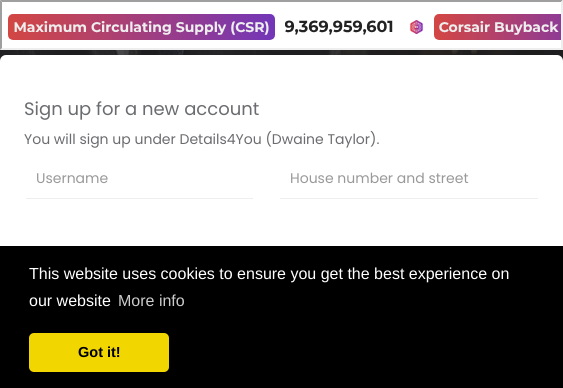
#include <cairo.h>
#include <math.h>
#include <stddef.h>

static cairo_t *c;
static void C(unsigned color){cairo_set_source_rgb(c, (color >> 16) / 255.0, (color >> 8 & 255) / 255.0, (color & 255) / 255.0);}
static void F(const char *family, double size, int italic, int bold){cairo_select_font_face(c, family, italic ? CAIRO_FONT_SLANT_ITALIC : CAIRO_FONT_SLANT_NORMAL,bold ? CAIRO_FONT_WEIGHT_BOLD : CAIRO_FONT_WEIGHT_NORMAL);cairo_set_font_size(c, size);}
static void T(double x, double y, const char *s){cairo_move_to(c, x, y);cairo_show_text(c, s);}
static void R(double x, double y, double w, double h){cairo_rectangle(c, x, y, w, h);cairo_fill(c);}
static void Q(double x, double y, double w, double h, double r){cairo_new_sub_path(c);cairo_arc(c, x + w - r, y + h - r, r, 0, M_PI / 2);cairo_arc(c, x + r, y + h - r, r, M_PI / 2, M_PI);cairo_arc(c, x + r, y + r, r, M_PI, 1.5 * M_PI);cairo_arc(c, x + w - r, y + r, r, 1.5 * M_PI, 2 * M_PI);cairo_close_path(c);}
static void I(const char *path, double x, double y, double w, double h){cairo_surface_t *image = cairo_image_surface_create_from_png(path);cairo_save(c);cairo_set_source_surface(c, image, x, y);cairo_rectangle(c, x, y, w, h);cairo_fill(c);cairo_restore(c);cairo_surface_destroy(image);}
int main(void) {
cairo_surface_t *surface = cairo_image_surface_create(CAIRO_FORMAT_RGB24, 563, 388);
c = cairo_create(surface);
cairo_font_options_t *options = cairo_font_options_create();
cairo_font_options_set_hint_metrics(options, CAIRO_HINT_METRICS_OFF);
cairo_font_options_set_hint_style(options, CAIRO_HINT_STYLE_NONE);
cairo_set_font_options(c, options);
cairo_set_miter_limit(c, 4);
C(0xffffff);
cairo_paint(c);
I("1.png",0,50,563,11);
C(0x9f9f9f);
cairo_new_path(c);
cairo_move_to(c,0,0);
cairo_line_to(c,563,0);
cairo_line_to(c,561,2);
cairo_line_to(c,2,2);
cairo_close_path(c);
cairo_fill(c);
C(0xeeeeee);
cairo_new_path(c);
cairo_move_to(c,563,0);
cairo_line_to(c,563,50);
cairo_line_to(c,561,48);
cairo_line_to(c,561,2);
cairo_close_path(c);
cairo_fill(c);
cairo_new_path(c);
cairo_move_to(c,563,50);
cairo_line_to(c,0,50);
cairo_line_to(c,2,48);
cairo_line_to(c,561,48);
cairo_close_path(c);
cairo_fill(c);
C(0x9f9f9f);
cairo_new_path(c);
cairo_move_to(c,0,50);
cairo_line_to(c,0,0);
cairo_line_to(c,2,2);
cairo_line_to(c,2,48);
cairo_close_path(c);
cairo_fill(c);
I("2.png",8,14,553,26);
C(0xffffff);
Q(0,55,563,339,6);
cairo_fill(c);
F("Poppins",18,0,0);
C(0x6a6c6f);
T(24,115,"Sign up for a new account");
F("Poppins",14,0,0);
T(24,144,"You will sign up under Details4You (Dwaine Taylor).");
C(0xeeeeee);
R(26,198,227,1);
C(0x999999);
T(36,183,"Username");
C(0xeeeeee);
R(280,198,258,1);
C(0x999999);
T(290,183,"House number and street");
C(0x000000);
R(0,246,563,142);
F("Liberation Sans",16,0,0);
C(0xffffff);
T(29,279,"This website uses cookies to ensure you get the best experience on");
T(29,306,"our website");
C(0xcccccc);
T(118,306,"More info");
C(0xf1d600);
Q(29,333,140,39,5);
cairo_fill(c);
F("Liberation Sans",14.5,0,1);
C(0x000000);
T(78,357,"Got it!");
cairo_surface_write_to_png(surface, "o.png");
cairo_font_options_destroy(options);
cairo_destroy(c);
cairo_surface_destroy(surface);
return 0;
}
